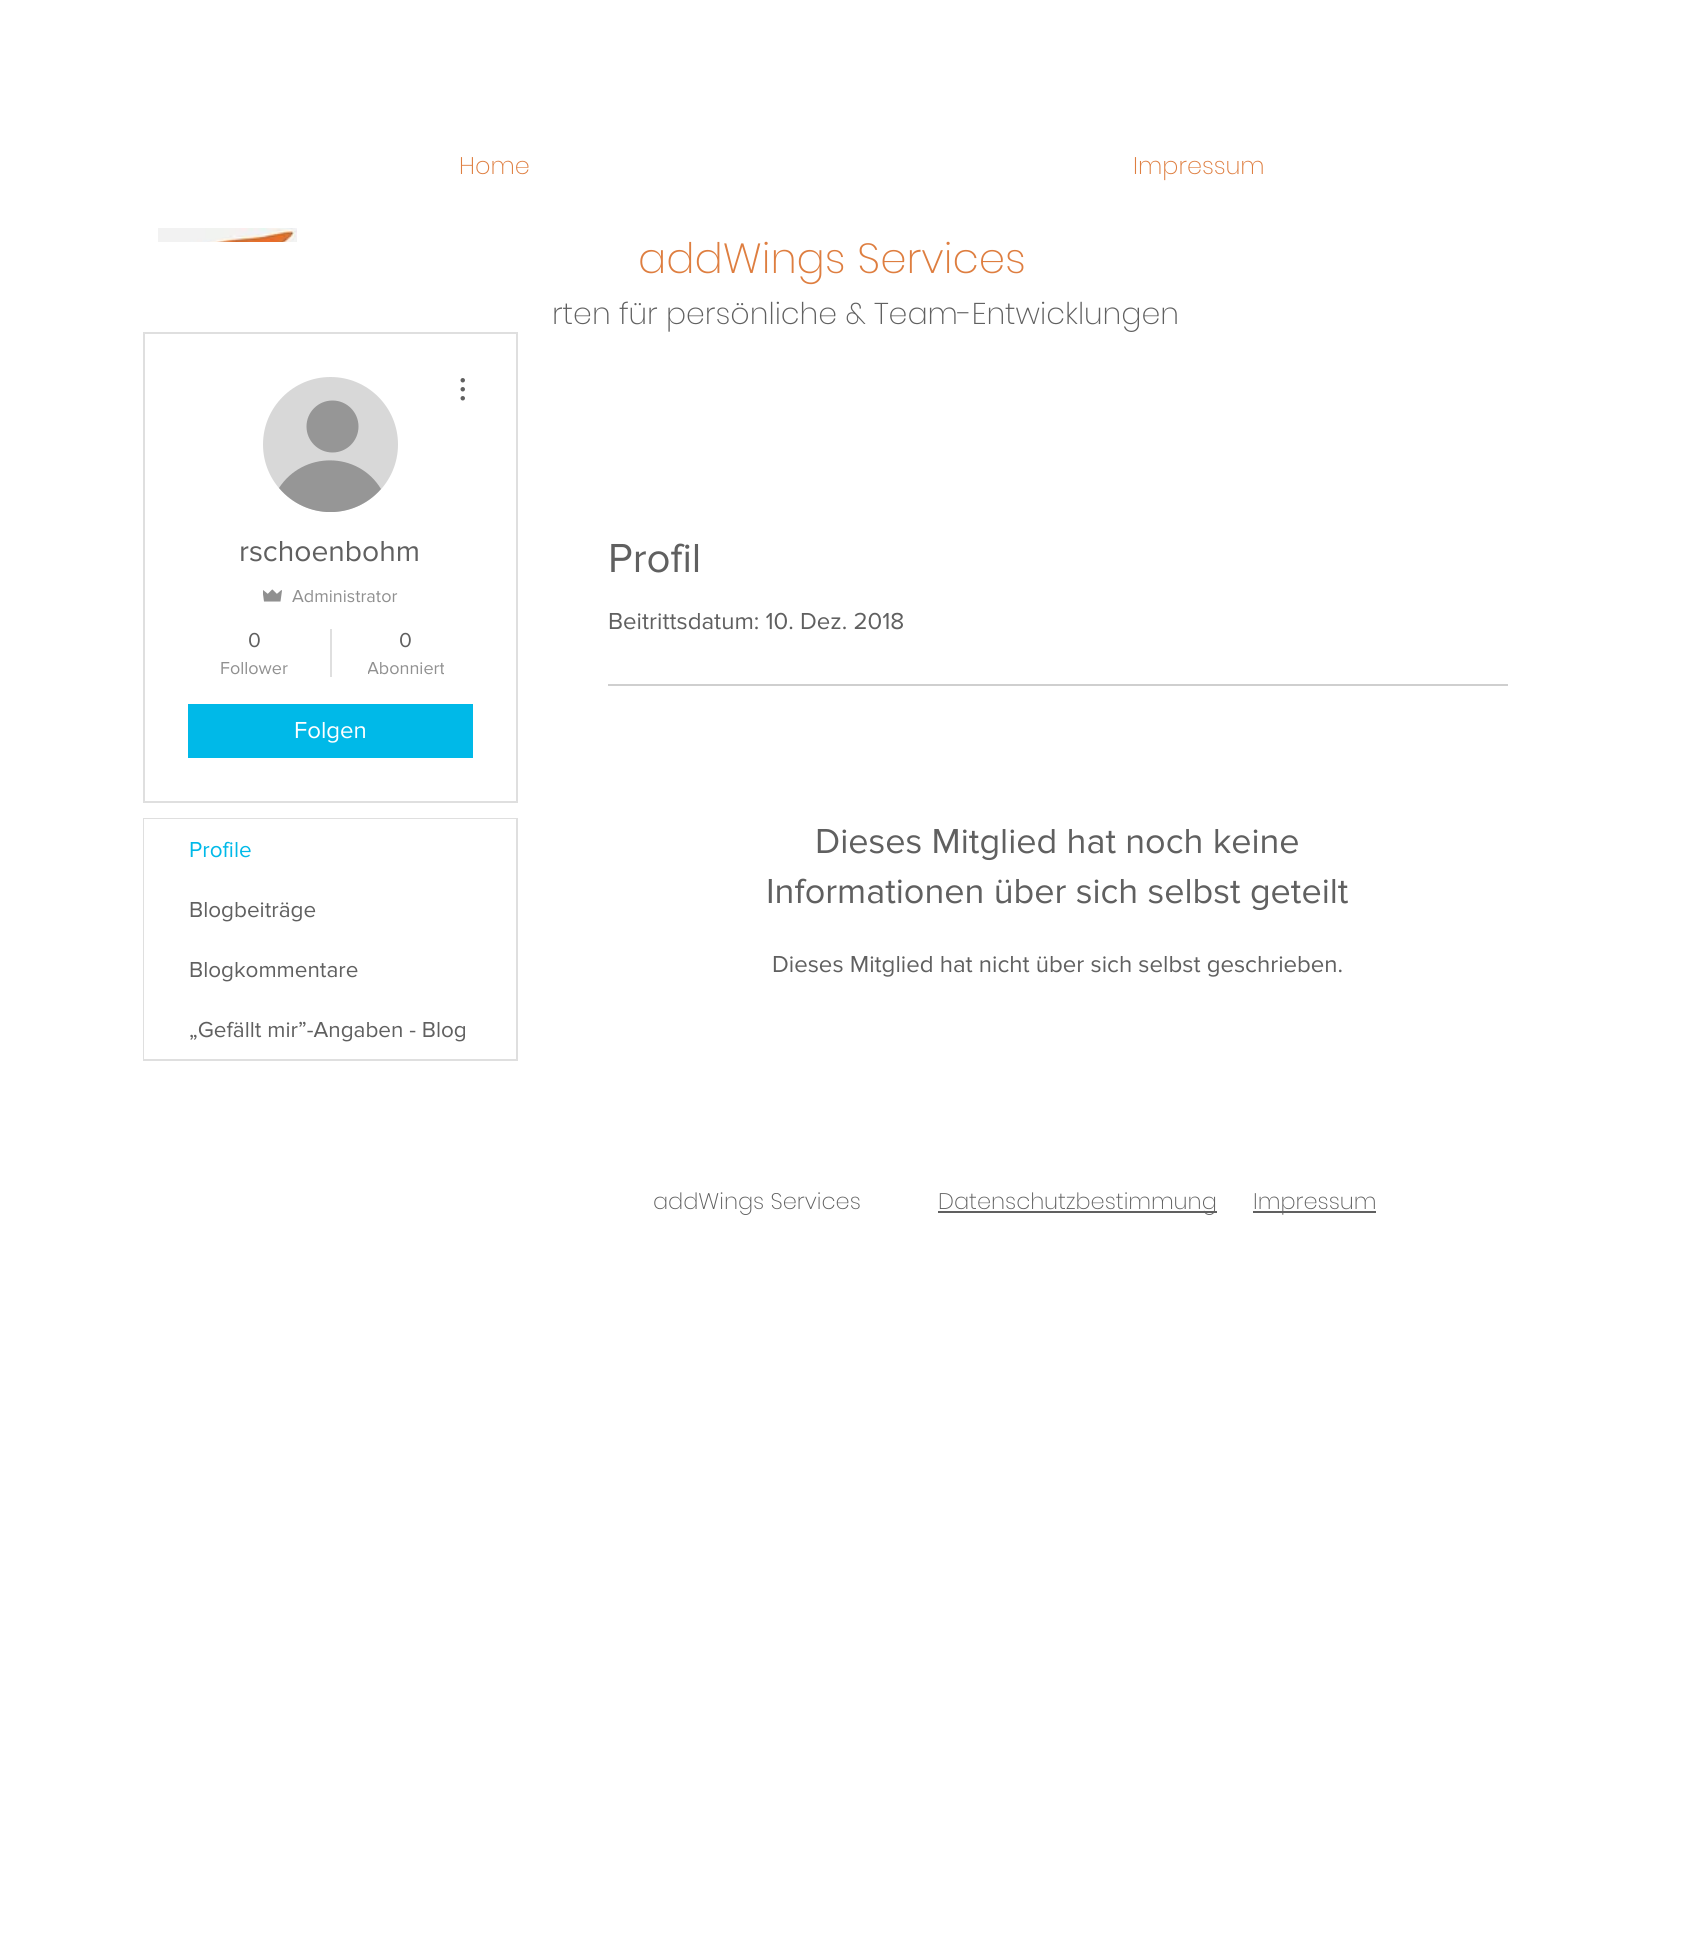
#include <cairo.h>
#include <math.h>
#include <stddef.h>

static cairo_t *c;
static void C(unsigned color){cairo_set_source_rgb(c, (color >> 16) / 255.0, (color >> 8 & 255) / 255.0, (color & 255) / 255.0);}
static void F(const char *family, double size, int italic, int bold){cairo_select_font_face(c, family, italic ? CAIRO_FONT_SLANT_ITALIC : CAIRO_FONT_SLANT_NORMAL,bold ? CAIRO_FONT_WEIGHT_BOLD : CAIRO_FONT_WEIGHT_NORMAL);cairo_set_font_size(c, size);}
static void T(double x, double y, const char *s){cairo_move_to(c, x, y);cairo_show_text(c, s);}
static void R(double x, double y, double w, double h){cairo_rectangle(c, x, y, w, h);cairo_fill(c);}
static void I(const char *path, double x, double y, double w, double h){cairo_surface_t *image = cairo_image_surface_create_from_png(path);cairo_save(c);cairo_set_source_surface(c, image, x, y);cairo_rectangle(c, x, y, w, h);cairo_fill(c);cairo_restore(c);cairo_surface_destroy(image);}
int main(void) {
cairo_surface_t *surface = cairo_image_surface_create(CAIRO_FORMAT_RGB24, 1695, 1951);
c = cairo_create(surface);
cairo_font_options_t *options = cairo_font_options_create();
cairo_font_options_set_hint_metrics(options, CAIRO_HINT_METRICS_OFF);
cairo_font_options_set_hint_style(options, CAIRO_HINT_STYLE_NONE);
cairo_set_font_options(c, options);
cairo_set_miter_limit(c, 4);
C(0xffffff);
cairo_paint(c);
F("Poppins ExtraLight",24,0,0);
C(0xde7e40);
T(459,174,"Home");
T(1133,174,"Impressum");
I("1.png",158,228,139,14);
F("Poppins ExtraLight",42,0,0);
T(638,273,"addWings Services");
F("Poppins ExtraLight",30,0,0);
C(0x606060);
T(552,324,"rten für persönliche & Team-Entwicklungen");
cairo_rectangle(c,144,333,373,469);
C(0xdfdfdf);
cairo_stroke(c);
C(0xd8d8d8);
cairo_arc(c,330.5,444.5,67.5,0,2 * M_PI);
cairo_fill(c);
C(0x969696);
cairo_arc(c,332.5,426.5,26,0,2 * M_PI);
cairo_fill(c);
cairo_save(c);
cairo_rectangle(c,263,377,135,135);
cairo_clip(c);
cairo_new_path(c);
cairo_move_to(c,381,489);
cairo_curve_to(c,354,520,306,520,279,488);
cairo_curve_to(c,303,451,358,451,381,489);
cairo_close_path(c);
cairo_fill(c);
cairo_restore(c);
I("2.png",460,378,5,23);
F("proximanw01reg",30,0,0);
C(0x606060);
T(239,561,"rschoenbohm");
I("3.png",263,589,19,13);
F("proximanw01reg",18,0,0);
C(0x909090);
T(292,602,"Administrator");
F("proximanw01reg",21,0,0);
C(0x606060);
T(248,647,"0");
F("proximanw01reg",18,0,0);
C(0x909090);
T(220,674,"Follower");
C(0xdfdfdf);
R(330,629,2,48);
F("proximanw01reg",21,0,0);
C(0x606060);
T(399,647,"0");
cairo_save(c);
cairo_rectangle(c,368,656,76,24);
cairo_clip(c);
F("proximanw01reg",18,0,0);
C(0x909090);
T(367,674,"Abonniert");
cairo_restore(c);
C(0x00b9e8);
R(188,704,285,54);
F("proximanw01reg",24,0,0);
C(0xffffff);
T(294,738,"Folgen");
cairo_rectangle(c,144,819,373,241);
C(0xdfdfdf);
cairo_stroke(c);
C(0xffffff);
R(144,819,372,60);
F("proximanw01reg",22.5,0,0);
C(0x00b9e8);
T(189,857,"Profile");
C(0xffffff);
R(144,879,1,180);
C(0x606060);
T(189,917,"Blogbeiträge");
T(189,977,"Blogkommentare");
T(189,1037,"„Gefällt mir”-Angaben - Blog");
F("proximanw01reg",42,0,0);
T(608,572,"Profil");
F("proximanw01reg",24,0,0);
T(608,629,"Beitrittsdatum: 10. Dez. 2018");
C(0xcfcfcf);
R(608,684,900,2);
F("proximanw01reg",36,0,0);
C(0x606060);
T(815,853,"Dieses Mitglied hat noch keine");
T(766,903,"Informationen über sich selbst geteilt");
F("proximanw01reg",24,0,0);
T(772,972,"Dieses Mitglied hat nicht über sich selbst geschrieben.");
F("Poppins ExtraLight",22.5,0,0);
T(653,1209,"addWings Services");
R(938,1211,279,2);
T(938,1209,"Datenschutzbestimmung");
R(1253,1211,123,2);
T(1253,1209,"Impressum");
cairo_surface_write_to_png(surface, "o.png");
cairo_font_options_destroy(options);
cairo_destroy(c);
cairo_surface_destroy(surface);
return 0;
}
